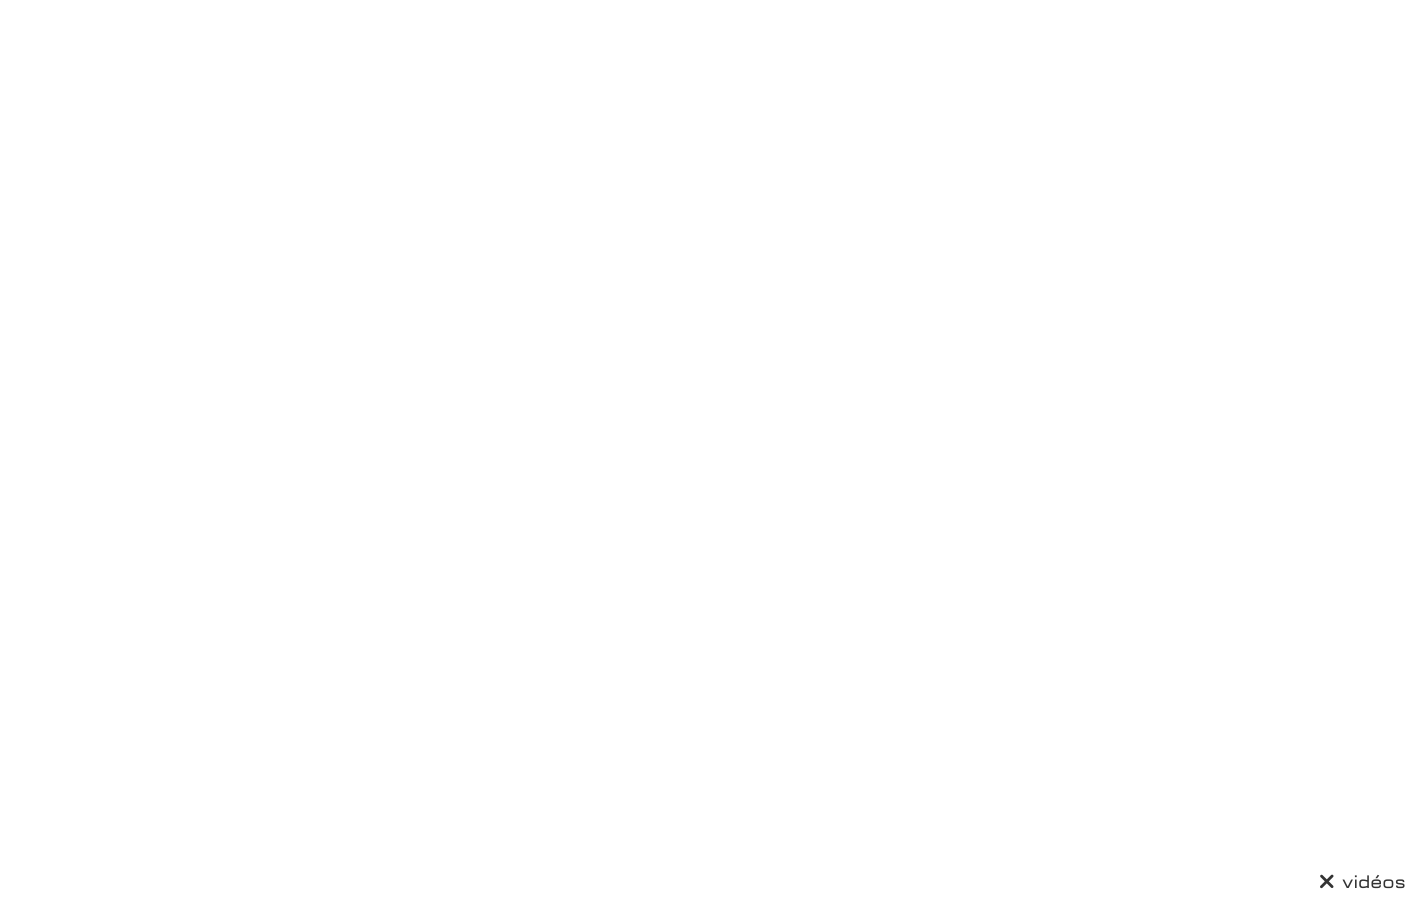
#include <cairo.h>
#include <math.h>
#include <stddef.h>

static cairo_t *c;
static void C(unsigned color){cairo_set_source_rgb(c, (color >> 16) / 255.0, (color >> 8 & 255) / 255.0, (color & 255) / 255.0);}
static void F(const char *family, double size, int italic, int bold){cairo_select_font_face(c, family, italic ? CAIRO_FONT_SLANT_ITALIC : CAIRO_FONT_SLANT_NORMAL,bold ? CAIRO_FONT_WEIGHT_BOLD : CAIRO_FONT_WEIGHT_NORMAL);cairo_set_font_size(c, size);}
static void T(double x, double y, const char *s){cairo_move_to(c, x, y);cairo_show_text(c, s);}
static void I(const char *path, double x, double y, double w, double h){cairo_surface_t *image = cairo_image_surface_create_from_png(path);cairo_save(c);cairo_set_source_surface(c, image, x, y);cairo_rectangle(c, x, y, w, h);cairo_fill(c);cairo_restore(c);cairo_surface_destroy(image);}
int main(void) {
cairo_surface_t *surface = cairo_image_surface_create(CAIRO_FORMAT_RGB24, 1416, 906);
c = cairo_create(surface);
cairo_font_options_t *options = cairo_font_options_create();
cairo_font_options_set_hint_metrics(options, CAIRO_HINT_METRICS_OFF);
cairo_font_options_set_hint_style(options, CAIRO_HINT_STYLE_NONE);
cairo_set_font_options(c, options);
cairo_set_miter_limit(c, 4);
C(0xffffff);
cairo_paint(c);
I("1.png",1320,874,14,15);
F("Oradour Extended",19,0,0);
C(0x333333);
T(1342,888,"vidéos");
cairo_surface_write_to_png(surface, "o.png");
cairo_font_options_destroy(options);
cairo_destroy(c);
cairo_surface_destroy(surface);
return 0;
}
